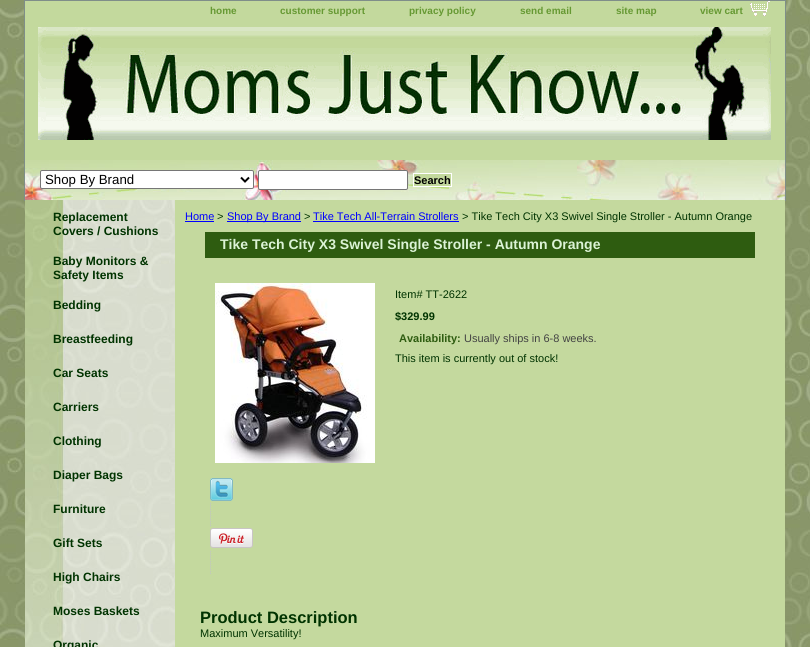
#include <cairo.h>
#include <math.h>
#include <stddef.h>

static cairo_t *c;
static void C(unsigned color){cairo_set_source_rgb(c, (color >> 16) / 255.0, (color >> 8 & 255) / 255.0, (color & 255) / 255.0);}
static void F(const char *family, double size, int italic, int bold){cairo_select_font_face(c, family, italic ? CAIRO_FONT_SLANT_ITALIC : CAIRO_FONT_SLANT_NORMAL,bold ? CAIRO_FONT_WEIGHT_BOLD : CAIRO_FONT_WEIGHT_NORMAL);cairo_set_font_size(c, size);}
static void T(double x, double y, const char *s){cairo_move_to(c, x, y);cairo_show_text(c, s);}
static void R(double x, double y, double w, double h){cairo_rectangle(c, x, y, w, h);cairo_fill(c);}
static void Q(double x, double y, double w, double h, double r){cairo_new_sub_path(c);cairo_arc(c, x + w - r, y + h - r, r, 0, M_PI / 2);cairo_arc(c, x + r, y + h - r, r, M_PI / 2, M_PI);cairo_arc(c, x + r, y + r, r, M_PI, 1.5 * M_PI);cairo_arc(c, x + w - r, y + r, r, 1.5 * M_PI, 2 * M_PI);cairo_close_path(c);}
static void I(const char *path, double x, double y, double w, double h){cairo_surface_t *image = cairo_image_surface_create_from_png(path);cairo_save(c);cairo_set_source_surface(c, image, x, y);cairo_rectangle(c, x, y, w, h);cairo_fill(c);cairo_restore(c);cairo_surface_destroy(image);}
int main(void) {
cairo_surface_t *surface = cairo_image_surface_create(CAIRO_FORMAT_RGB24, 810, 647);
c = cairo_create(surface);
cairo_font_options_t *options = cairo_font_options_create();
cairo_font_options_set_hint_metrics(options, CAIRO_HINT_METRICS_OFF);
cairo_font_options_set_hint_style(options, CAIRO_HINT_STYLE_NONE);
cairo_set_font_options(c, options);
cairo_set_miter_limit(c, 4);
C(0xffffff);
cairo_paint(c);
I("1.png",0,0,810,647);
cairo_rectangle(c,24.5,.5,761,200);
C(0x7f8e89);
cairo_set_line_width(c,1);
cairo_stroke(c);
C(0xc3d99d);
R(25,1,760,159);
F("Liberation Sans",10,0,1);
C(0x669933);
T(210,14,"home");
T(280,14,"customer support");
T(409,14,"privacy policy");
T(520,14,"send email");
T(616,14,"site map");
I("2.png",750,1,20,15);
T(700,14,"view cart");
I("3.png",38,27,733,113);
I("4.png",25,160,760,40);
C(0xffffff);
Q(40.5,170.5,213,18,1.5);
cairo_fill_preserve(c);
C(0x767676);
cairo_stroke(c);
cairo_new_path(c);
cairo_move_to(c,241,177.5);
cairo_line_to(c,245,181.5);
cairo_line_to(c,249,177.5);
C(0x000000);
cairo_set_line_width(c,2);
cairo_stroke(c);
F("Liberation Sans",13.25,0,0);
T(45,184,"Shop By Brand");
C(0xffffff);
Q(258.5,170.5,149,19,1.5);
cairo_fill_preserve(c);
C(0x767676);
cairo_set_line_width(c,1);
cairo_stroke(c);
C(0xc3d99d);
cairo_rectangle(c,413.5,173.5,38,13);
cairo_fill_preserve(c);
C(0xffffff);
cairo_stroke(c);
F("Liberation Sans",11,0,1);
C(0x000000);
T(414,184,"Search");
C(0xc4d99e);
R(175,200,610,447);
I("5.png",25,200,150,447);
F("Liberation Sans",12,0,1);
C(0x003300);
T(53,221,"Replacement");
T(53,235,"Covers / Cushions");
T(53,265,"Baby Monitors &");
T(53,279,"Safety Items");
T(53,309,"Bedding");
T(53,343,"Breastfeeding");
T(53,377,"Car Seats");
T(53,411,"Carriers");
T(53,445,"Clothing");
T(53,479,"Diaper Bags");
T(53,513,"Furniture");
T(53,547,"Gift Sets");
T(53,581,"High Chairs");
T(53,615,"Moses Baskets");
T(53,649,"Organic");
F("Liberation Sans",11,0,0);
C(0x0000ff);
T(185,220,"Home");
R(185,221,29,1);
C(0x003300);
T(217,220,">");
C(0x0000ff);
R(227,221,74,1);
T(227,220,"Shop By Brand");
C(0x003300);
T(304,220,">");
C(0x0000ff);
T(313,220,"Tike Tech All-Terrain Strollers");
R(313,221,146,1);
C(0x003300);
T(462,220,"> Tike Tech City X3 Swivel Single Stroller - Autumn Orange");
C(0x2e5c10);
R(205,232,550,26);
F("Liberation Sans",14,0,1);
C(0xdcf3d6);
T(220,249,"Tike Tech City X3 Swivel Single Stroller - Autumn Orange");
I("6.png",215,283,160,180);
F("Liberation Sans",11,0,0);
C(0x003300);
T(395,298,"Item# TT-2622");
F("Liberation Sans",11,0,1);
T(395,320,"$329.99");
C(0x2e5c10);
T(399,342,"Availability:");
F("Liberation Sans",11,0,0);
C(0x434343);
T(464,342,"Usually ships in 6-8 weeks.");
C(0x003300);
T(395,362,"This item is currently out of stock!");
I("7.png",210,478,23,23);
I("8.png",210,503,1,23);
I("9.png",210,528,43,20);
I("8.png",210,551,1,23);
F("Liberation Sans",16.5,0,1);
T(200,623,"Product Description");
F("Liberation Sans",11,0,0);
T(200,637,"Maximum Versatility!");
cairo_surface_write_to_png(surface, "o.png");
cairo_font_options_destroy(options);
cairo_destroy(c);
cairo_surface_destroy(surface);
return 0;
}
